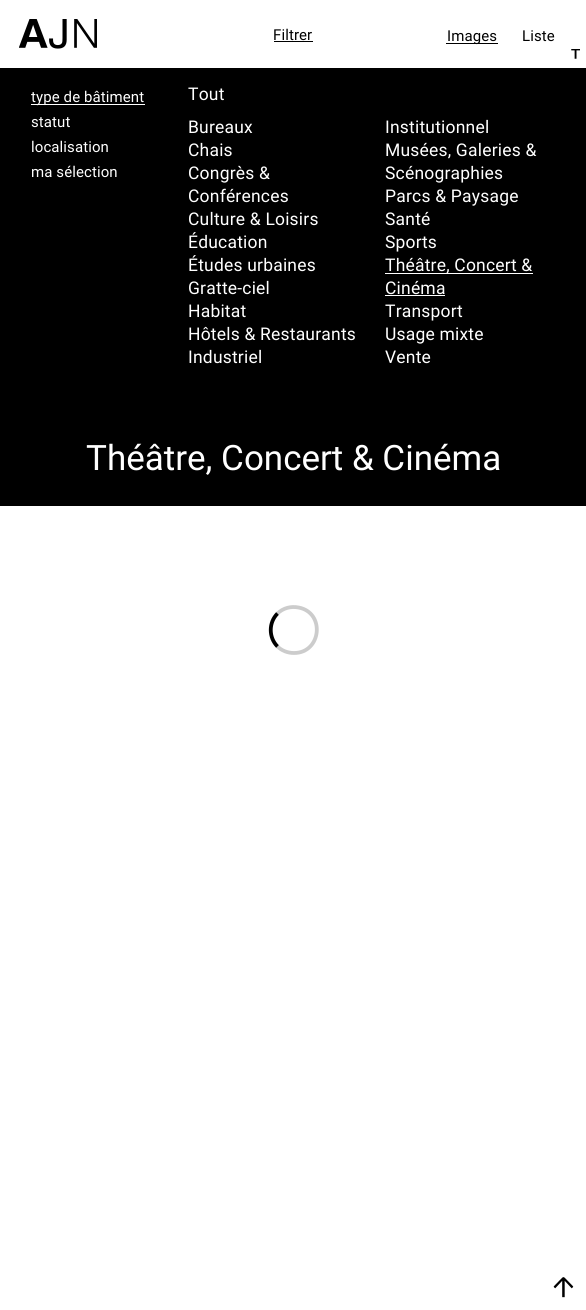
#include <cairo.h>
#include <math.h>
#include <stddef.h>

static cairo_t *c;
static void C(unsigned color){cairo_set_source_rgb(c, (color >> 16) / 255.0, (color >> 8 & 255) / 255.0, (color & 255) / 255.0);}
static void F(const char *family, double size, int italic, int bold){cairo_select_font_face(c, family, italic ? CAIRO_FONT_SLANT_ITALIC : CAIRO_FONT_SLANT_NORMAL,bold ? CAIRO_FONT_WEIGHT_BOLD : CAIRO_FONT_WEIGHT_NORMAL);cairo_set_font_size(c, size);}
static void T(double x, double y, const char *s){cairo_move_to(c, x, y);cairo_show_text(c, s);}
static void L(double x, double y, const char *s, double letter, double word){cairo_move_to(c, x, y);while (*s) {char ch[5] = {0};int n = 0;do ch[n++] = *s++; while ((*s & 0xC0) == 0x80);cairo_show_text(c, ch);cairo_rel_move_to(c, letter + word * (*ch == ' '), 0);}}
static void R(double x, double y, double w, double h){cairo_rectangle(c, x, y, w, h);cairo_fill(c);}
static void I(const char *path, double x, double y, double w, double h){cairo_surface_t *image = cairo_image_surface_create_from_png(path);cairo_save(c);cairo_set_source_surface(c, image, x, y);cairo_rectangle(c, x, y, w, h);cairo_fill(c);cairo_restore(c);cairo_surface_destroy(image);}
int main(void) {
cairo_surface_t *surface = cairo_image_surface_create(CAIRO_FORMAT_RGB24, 586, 1310);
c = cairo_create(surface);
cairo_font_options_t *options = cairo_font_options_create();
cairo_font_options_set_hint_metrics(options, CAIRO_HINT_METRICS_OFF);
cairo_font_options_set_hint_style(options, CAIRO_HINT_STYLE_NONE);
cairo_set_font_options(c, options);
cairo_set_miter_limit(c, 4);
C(0xffffff);
cairo_paint(c);
I("1.png",19,19,78,30);
F("Roboto",15,0,0);
C(0x000000);
L(273,40,"Filtrer",.1,0);
R(274,41,39,1);
R(446,43,52,1);
L(447,41,"Images",.1,0);
L(522,41,"Liste",.1,0);
I("2.png",571,49,9,10);
R(0,68,586,438);
C(0xffffff);
R(31,104,114,1);
L(31,102,"type de bâtiment",.1,0);
L(31,127,"statut",.1,0);
L(31,152,"localisation",.1,0);
L(31,177,"ma sélection",.1,0);
F("Roboto",17.5,0,0);
L(188,100,"Tout",.2,0);
L(188,133,"Bureaux",.2,0);
L(385,133,"Institutionnel",.2,0);
L(188,156,"Chais",.2,0);
L(385,156,"Musées, Galeries &",.2,0);
L(385,179,"Scénographies",.2,0);
L(188,179,"Congrès &",.2,0);
L(188,202,"Conférences",.2,0);
L(385,202,"Parcs & Paysage",.2,0);
L(188,225,"Culture & Loisirs",.2,0);
L(385,225,"Santé",.2,0);
L(188,248,"Éducation",.2,0);
L(385,248,"Sports",.2,0);
L(188,271,"Études urbaines",.2,0);
R(385,273,148,1);
L(385,271,"Théâtre, Concert &",.2,0);
L(385,294,"Cinéma",.2,0);
R(385,295,60,1);
L(188,294,"Gratte-ciel",.2,0);
L(188,317,"Habitat",.2,0);
L(385,317,"Transport",.2,0);
L(188,340,"Hôtels & Restaurants",.2,0);
L(385,340,"Usage mixte",.2,0);
L(188,363,"Industriel",.2,0);
L(385,363,"Vente",.2,0);
F("Roboto",35,0,0);
T(86,470,"Théâtre, Concert & Cinéma");
cairo_new_path(c);
cairo_move_to(c,277.5,613.5);
cairo_curve_to(c,283,608,291,606,298.5,607.5);
cairo_curve_to(c,325.5,612.5,321.5,653,294,653);
cairo_curve_to(c,287.5,653,281.5,650.5,277.5,646.5);
C(0xcccccc);
cairo_set_line_width(c,3.8);
cairo_stroke(c);
cairo_new_path(c);
cairo_move_to(c,277.5,646.5);
cairo_curve_to(c,268.5,637.5,268.5,622.5,277.5,613.5);
C(0x000000);
cairo_stroke(c);
I("3.png",553,1277,21,21);
cairo_surface_write_to_png(surface, "o.png");
cairo_font_options_destroy(options);
cairo_destroy(c);
cairo_surface_destroy(surface);
return 0;
}
